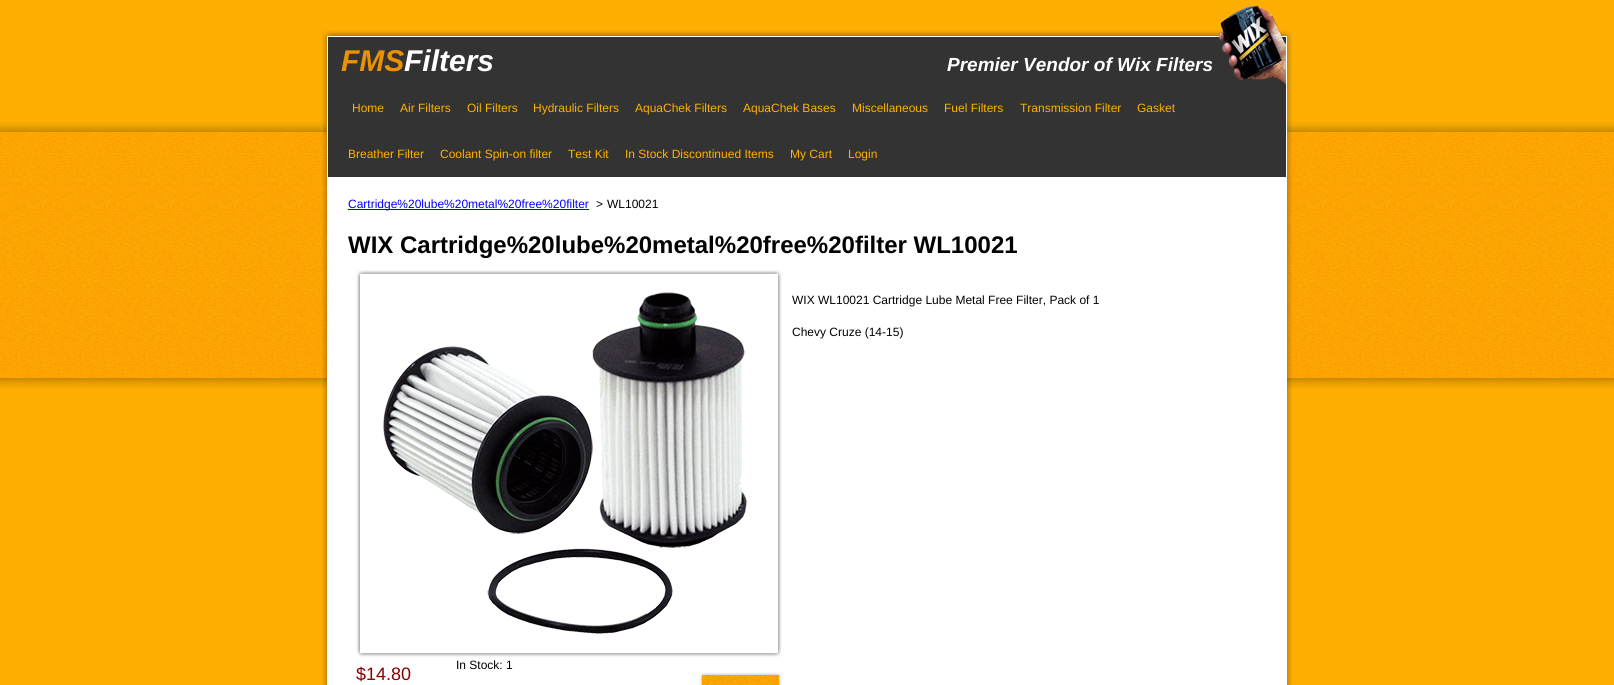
#include <cairo.h>
#include <math.h>
#include <stddef.h>

static cairo_t *c;
static void C(unsigned color){cairo_set_source_rgb(c, (color >> 16) / 255.0, (color >> 8 & 255) / 255.0, (color & 255) / 255.0);}
static void F(const char *family, double size, int italic, int bold){cairo_select_font_face(c, family, italic ? CAIRO_FONT_SLANT_ITALIC : CAIRO_FONT_SLANT_NORMAL,bold ? CAIRO_FONT_WEIGHT_BOLD : CAIRO_FONT_WEIGHT_NORMAL);cairo_set_font_size(c, size);}
static void T(double x, double y, const char *s){cairo_move_to(c, x, y);cairo_show_text(c, s);}
static void R(double x, double y, double w, double h){cairo_rectangle(c, x, y, w, h);cairo_fill(c);}
static void I(const char *path, double x, double y, double w, double h){cairo_surface_t *image = cairo_image_surface_create_from_png(path);cairo_save(c);cairo_set_source_surface(c, image, x, y);cairo_rectangle(c, x, y, w, h);cairo_fill(c);cairo_restore(c);cairo_surface_destroy(image);}
int main(void) {
cairo_surface_t *surface = cairo_image_surface_create(CAIRO_FORMAT_RGB24, 1614, 685);
c = cairo_create(surface);
cairo_font_options_t *options = cairo_font_options_create();
cairo_font_options_set_hint_metrics(options, CAIRO_HINT_METRICS_OFF);
cairo_font_options_set_hint_style(options, CAIRO_HINT_STYLE_NONE);
cairo_set_font_options(c, options);
cairo_set_miter_limit(c, 4);
C(0xfead01);
cairo_paint(c);
I("1.png",0,121,1614,268);
I("2.png",322,30,970,7);
I("3.png",322,37,970,648);
C(0x333333);
R(328,37,958,140);
F("Liberation Sans",30,1,1);
C(0xeb9204);
T(341,71,"FMS");
C(0xffffff);
T(404,71,"Filters");
F("Liberation Sans",19,1,1);
T(947,71,"Premier Vendor of Wix Filters");
I("4.png",1218,5,68,80);
F("Liberation Sans",12,0,0);
C(0xfeb101);
T(352,112,"Home");
T(400,112,"Air Filters");
T(467,112,"Oil Filters");
T(533,112,"Hydraulic Filters");
T(635,112,"AquaChek Filters");
T(743,112,"AquaChek Bases");
T(852,112,"Miscellaneous");
T(944,112,"Fuel Filters");
T(1020,112,"Transmission Filter");
T(1137,112,"Gasket");
T(348,158,"Breather Filter");
T(440,158,"Coolant Spin-on filter");
T(568,158,"Test Kit");
T(625,158,"In Stock Discontinued Items");
T(790,158,"My Cart");
T(848,158,"Login");
C(0x0000ff);
R(348,209,241,1);
T(348,208,"Cartridge%20lube%20metal%20free%20filter");
C(0x010101);
T(596,208,">");
T(607,208,"WL10021");
F("Liberation Sans",24,0,1);
T(348,253,"WIX Cartridge%20lube%20metal%20free%20filter WL10021");
F("Liberation Sans",12,0,0);
T(792,304,"WIX WL10021 Cartridge Lube Metal Free Filter, Pack of 1");
T(792,336,"Chevy Cruze (14-15)");
I("5.png",356,281,4,365);
I("6.png",778,281,4,365);
I("7.png",356,269,426,12);
I("8.png",356,270,7,11);
I("9.png",356,646,426,12);
I("10.png",356,646,7,11);
I("11.png",383,292,365,342);
T(456,669,"In Stock: 1");
F("Liberation Sans",18,0,0);
C(0x880000);
T(356,680,"$14.80");
I("12.png",708,672,74,13);
I("13.png",699,672,9,13);
cairo_surface_write_to_png(surface, "o.png");
cairo_font_options_destroy(options);
cairo_destroy(c);
cairo_surface_destroy(surface);
return 0;
}
